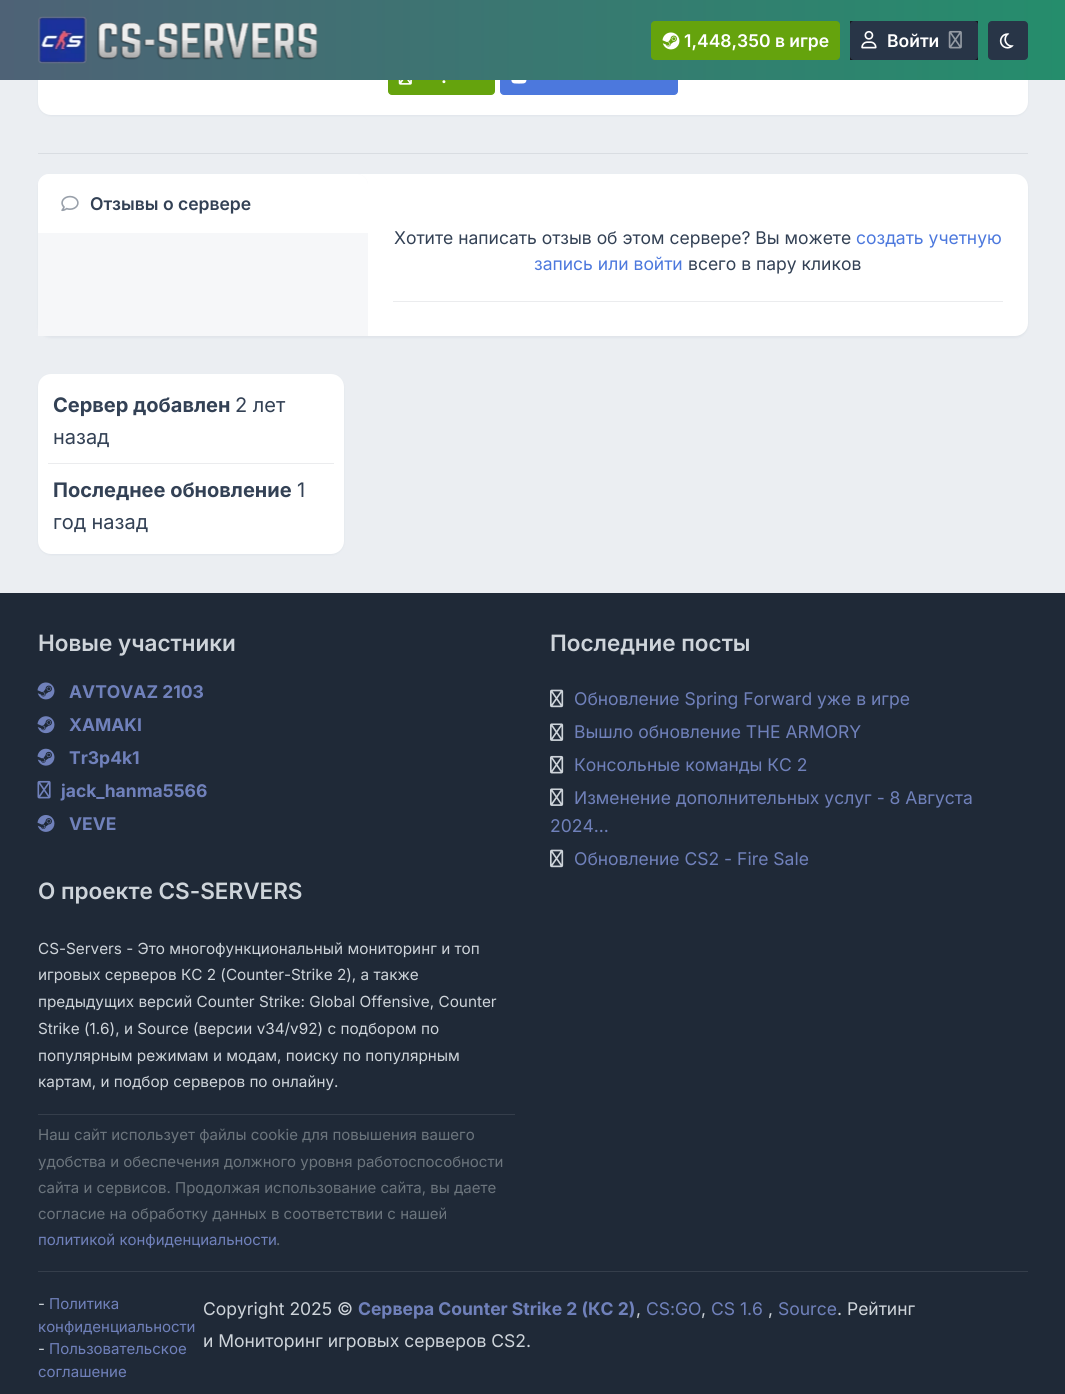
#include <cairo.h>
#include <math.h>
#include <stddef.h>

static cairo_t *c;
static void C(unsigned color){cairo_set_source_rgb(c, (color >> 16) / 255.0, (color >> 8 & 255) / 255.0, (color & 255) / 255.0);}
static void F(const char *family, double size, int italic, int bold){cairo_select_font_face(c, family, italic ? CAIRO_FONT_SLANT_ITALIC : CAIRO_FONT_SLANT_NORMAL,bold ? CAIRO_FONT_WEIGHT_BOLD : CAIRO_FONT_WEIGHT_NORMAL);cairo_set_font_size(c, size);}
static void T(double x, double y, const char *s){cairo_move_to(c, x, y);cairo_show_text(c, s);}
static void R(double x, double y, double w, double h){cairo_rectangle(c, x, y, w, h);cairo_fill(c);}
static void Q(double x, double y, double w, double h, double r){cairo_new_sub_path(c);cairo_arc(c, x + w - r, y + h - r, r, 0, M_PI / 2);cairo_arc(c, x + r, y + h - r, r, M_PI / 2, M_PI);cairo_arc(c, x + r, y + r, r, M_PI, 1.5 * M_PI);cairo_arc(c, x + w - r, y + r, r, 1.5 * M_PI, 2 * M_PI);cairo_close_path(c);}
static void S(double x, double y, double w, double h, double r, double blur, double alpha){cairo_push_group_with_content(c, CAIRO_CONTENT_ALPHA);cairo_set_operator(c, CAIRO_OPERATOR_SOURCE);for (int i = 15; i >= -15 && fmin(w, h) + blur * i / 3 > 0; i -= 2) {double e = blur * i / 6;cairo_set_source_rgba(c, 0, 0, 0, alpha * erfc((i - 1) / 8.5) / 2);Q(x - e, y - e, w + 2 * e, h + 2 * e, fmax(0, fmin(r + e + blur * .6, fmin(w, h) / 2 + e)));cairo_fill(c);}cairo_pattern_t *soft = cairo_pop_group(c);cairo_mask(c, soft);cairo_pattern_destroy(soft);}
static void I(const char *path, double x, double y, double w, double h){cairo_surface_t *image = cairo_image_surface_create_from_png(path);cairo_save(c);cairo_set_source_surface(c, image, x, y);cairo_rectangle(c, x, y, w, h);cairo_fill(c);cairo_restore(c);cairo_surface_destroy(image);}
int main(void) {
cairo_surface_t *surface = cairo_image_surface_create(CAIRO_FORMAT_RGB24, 1065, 1394);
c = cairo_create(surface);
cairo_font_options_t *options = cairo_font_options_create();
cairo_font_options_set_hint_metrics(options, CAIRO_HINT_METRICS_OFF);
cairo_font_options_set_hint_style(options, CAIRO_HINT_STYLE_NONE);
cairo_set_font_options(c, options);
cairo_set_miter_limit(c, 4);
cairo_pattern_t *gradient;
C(0xebeef2);
cairo_paint(c);
C(0xd6dbe2);
S(38,-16,990,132,13,1,.5);
C(0xffffff);
Q(38,-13,990,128,13);
cairo_fill(c);
C(0x65a30d);
Q(388.5,56.5,106,38,3.5);
cairo_fill_preserve(c);
cairo_set_line_width(c,1);
cairo_stroke(c);
C(0x4c78dd);
Q(500.5,56.5,177,38,3.5);
cairo_fill_preserve(c);
cairo_stroke(c);
gradient = cairo_pattern_create_linear(0,40,1065,40);
cairo_pattern_add_color_stop_rgba(gradient,0,0.306,0.384,0.463,1);
cairo_pattern_add_color_stop_rgba(gradient,1,0.145,0.553,0.424,1);
cairo_set_source(c,gradient);
cairo_pattern_destroy(gradient);
R(0,0,1065,80);
I("1.png",38,16,49,48);
I("2.png",97,22,221,38);
C(0x65a30d);
Q(651.5,21.5,188,38,3.5);
cairo_fill_preserve(c);
cairo_stroke(c);
I("3.png",662,32,18,18);
F("Inter SemiBold",17.5,0,0);
C(0xffffff);
T(684,47,"1,448,350 в игре");
C(0x16191f);
R(850,21,128,39);
C(0x283547);
Q(850.5,21.5,127,38,3.5);
cairo_fill_preserve(c);
cairo_stroke(c);
I("4.png",861,30,16,19);
C(0xffffff);
T(887,47,"Войти");
I("5.png",948,30,14,19);
C(0x283547);
Q(988.5,21.5,39,38,3.5);
cairo_fill_preserve(c);
cairo_stroke(c);
I("6.png",999,33,15,16);
I("7.png",398,80,14,5);
F("Inter",17.5,0,1);
C(0xffffff);
T(441,83,".");
I("8.png",511,80,16,4);
C(0xd9dde2);
R(38,153,990,1);
C(0xd6dbe2);
S(38,175,990,163,13,1,.5);
C(0xffffff);
Q(38,174,990,162,13);
cairo_fill(c);
C(0xf6f7f9);
cairo_new_path(c);
cairo_move_to(c,49,174);
cairo_line_to(c,357,174);
cairo_curve_to(c,363,174,368,179,368,185);
cairo_line_to(c,368,336);
cairo_line_to(c,38,336);
cairo_line_to(c,38,185);
cairo_curve_to(c,38,179,43,174,49,174);
cairo_close_path(c);
cairo_fill(c);
C(0xffffff);
cairo_new_path(c);
cairo_move_to(c,49,174);
cairo_line_to(c,357,174);
cairo_curve_to(c,363,174,368,179,368,185);
cairo_line_to(c,368,233);
cairo_line_to(c,38,233);
cairo_line_to(c,38,185);
cairo_curve_to(c,38,179,43,174,49,174);
cairo_close_path(c);
cairo_fill(c);
I("9.png",61,195,18,17);
F("Inter SemiBold",17.5,0,0);
C(0x334155);
T(90,210,"Отзывы о сервере");
F("Inter",17.5,0,0);
T(394,244,"Хотите написать отзыв об этом сервере? Вы можете");
C(0x4c78dd);
T(856,244,"создать учетную");
T(534,270,"запись или войти");
C(0x334155);
T(688,270,"всего в пару кликов");
C(0xebecee);
R(393,301,610,1);
C(0xd6dbe2);
S(38,375,306,180,13,1,.5);
C(0xffffff);
Q(38,374,306,180,13);
cairo_fill(c);
F("Inter",20,0,1);
C(0x334155);
T(53,412,"Сервер добавлен");
F("Inter",20,0,0);
T(235,412,"2 лет");
T(53,444,"назад");
C(0xebecee);
R(48,463,286,1);
F("Inter",20,0,1);
C(0x334155);
T(53,497,"Последнее обновление");
F("Inter",20,0,0);
T(297,497,"1");
T(53,529,"год назад");
C(0x1f2937);
R(0,593,1065,801);
F("Inter SemiBold",22.5,0,0);
C(0xced4da);
T(38,651,"Новые участники");
I("10.png",37,682,18,18);
F("Inter",17.5,0,1);
C(0x7081bb);
T(69,698,"AVTOVAZ 2103");
I("11.png",37,716,18,18);
T(69,731,"XAMAKI");
I("12.png",37,748,18,18);
T(69,764,"Tr3p4k1");
I("13.png",37,780,14,19);
T(61,797,"jack_hanma5566");
I("14.png",37,815,18,17);
T(69,830,"VEVE");
F("Inter SemiBold",22.5,0,0);
C(0xced4da);
T(550,651,"Последние посты");
I("15.png",550,689,14,19);
F("Inter",17.5,0,0);
C(0x7081bb);
T(574,705,"Обновление Spring Forward уже в игре");
I("16.png",550,723,14,18);
T(574,738,"Вышло обновление THE ARMORY");
I("17.png",550,755,14,19);
T(574,771,"Консольные команды КС 2");
I("16.png",550,788,14,18);
T(574,804,"Изменение дополнительных услуг - 8 Августа");
T(550,832,"2024...");
I("15.png",550,849,14,19);
T(574,865,"Обновление CS2 - Fire Sale");
F("Inter SemiBold",22.5,0,0);
C(0xced4da);
T(38,899,"О проекте CS-SERVERS");
F("Inter",15.3,0,0);
T(38,954,"CS-Servers - Это многофункциональный мониторинг и топ");
T(38,980,"игровых серверов КС 2 (Counter-Strike 2), а также");
T(38,1007,"предыдущих версий Counter Strike: Global Offensive, Counter");
T(38,1034,"Strike (1.6), и Source (версии v34/v92) с подбором по");
T(38,1061,"популярным режимам и модам, поиску по популярным");
T(38,1087,"картам, и подбор серверов по онлайну.");
C(0x353e4b);
R(38,1114,477,1);
F("Inter",15,0,0);
C(0x6c757d);
T(38,1140,"Наш сайт использует файлы cookie для повышения вашего");
T(38,1167,"удобства и обеспечения должного уровня работоспособности");
T(38,1193,"сайта и сервисов. Продолжая использование сайта, вы даете");
T(38,1219,"согласие на обработку данных в соответствии с нашей");
C(0x7081bb);
T(38,1245,"политикой конфиденциальности");
C(0x6c757d);
T(276,1245,".");
C(0x353e4b);
R(38,1271,990,1);
C(0xced4da);
T(38,1309,"-");
C(0x7081bb);
T(49,1309,"Политика");
T(38,1332,"конфиденциальности");
C(0xced4da);
T(38,1354,"-");
C(0x7081bb);
T(49,1354,"Пользовательское");
T(38,1377,"соглашение");
F("Inter",17.5,0,0);
C(0xced4da);
T(203,1315,"Copyright 2025 ©");
F("Inter",17.5,0,1);
C(0x7081bb);
T(358,1315,"Сервера Counter Strike 2 (КС 2)");
F("Inter",17.5,0,0);
C(0xced4da);
T(636,1315,",");
C(0x7081bb);
T(646,1315,"CS:GO");
C(0xced4da);
T(701,1315,",");
C(0x7081bb);
T(711,1315,"CS 1.6");
C(0xced4da);
T(768,1315,",");
C(0x7081bb);
T(778,1315,"Source");
C(0xced4da);
T(837,1315,". Рейтинг");
T(203,1347,"и Мониторинг игровых серверов CS2.");
cairo_surface_write_to_png(surface, "o.png");
cairo_font_options_destroy(options);
cairo_destroy(c);
cairo_surface_destroy(surface);
return 0;
}
